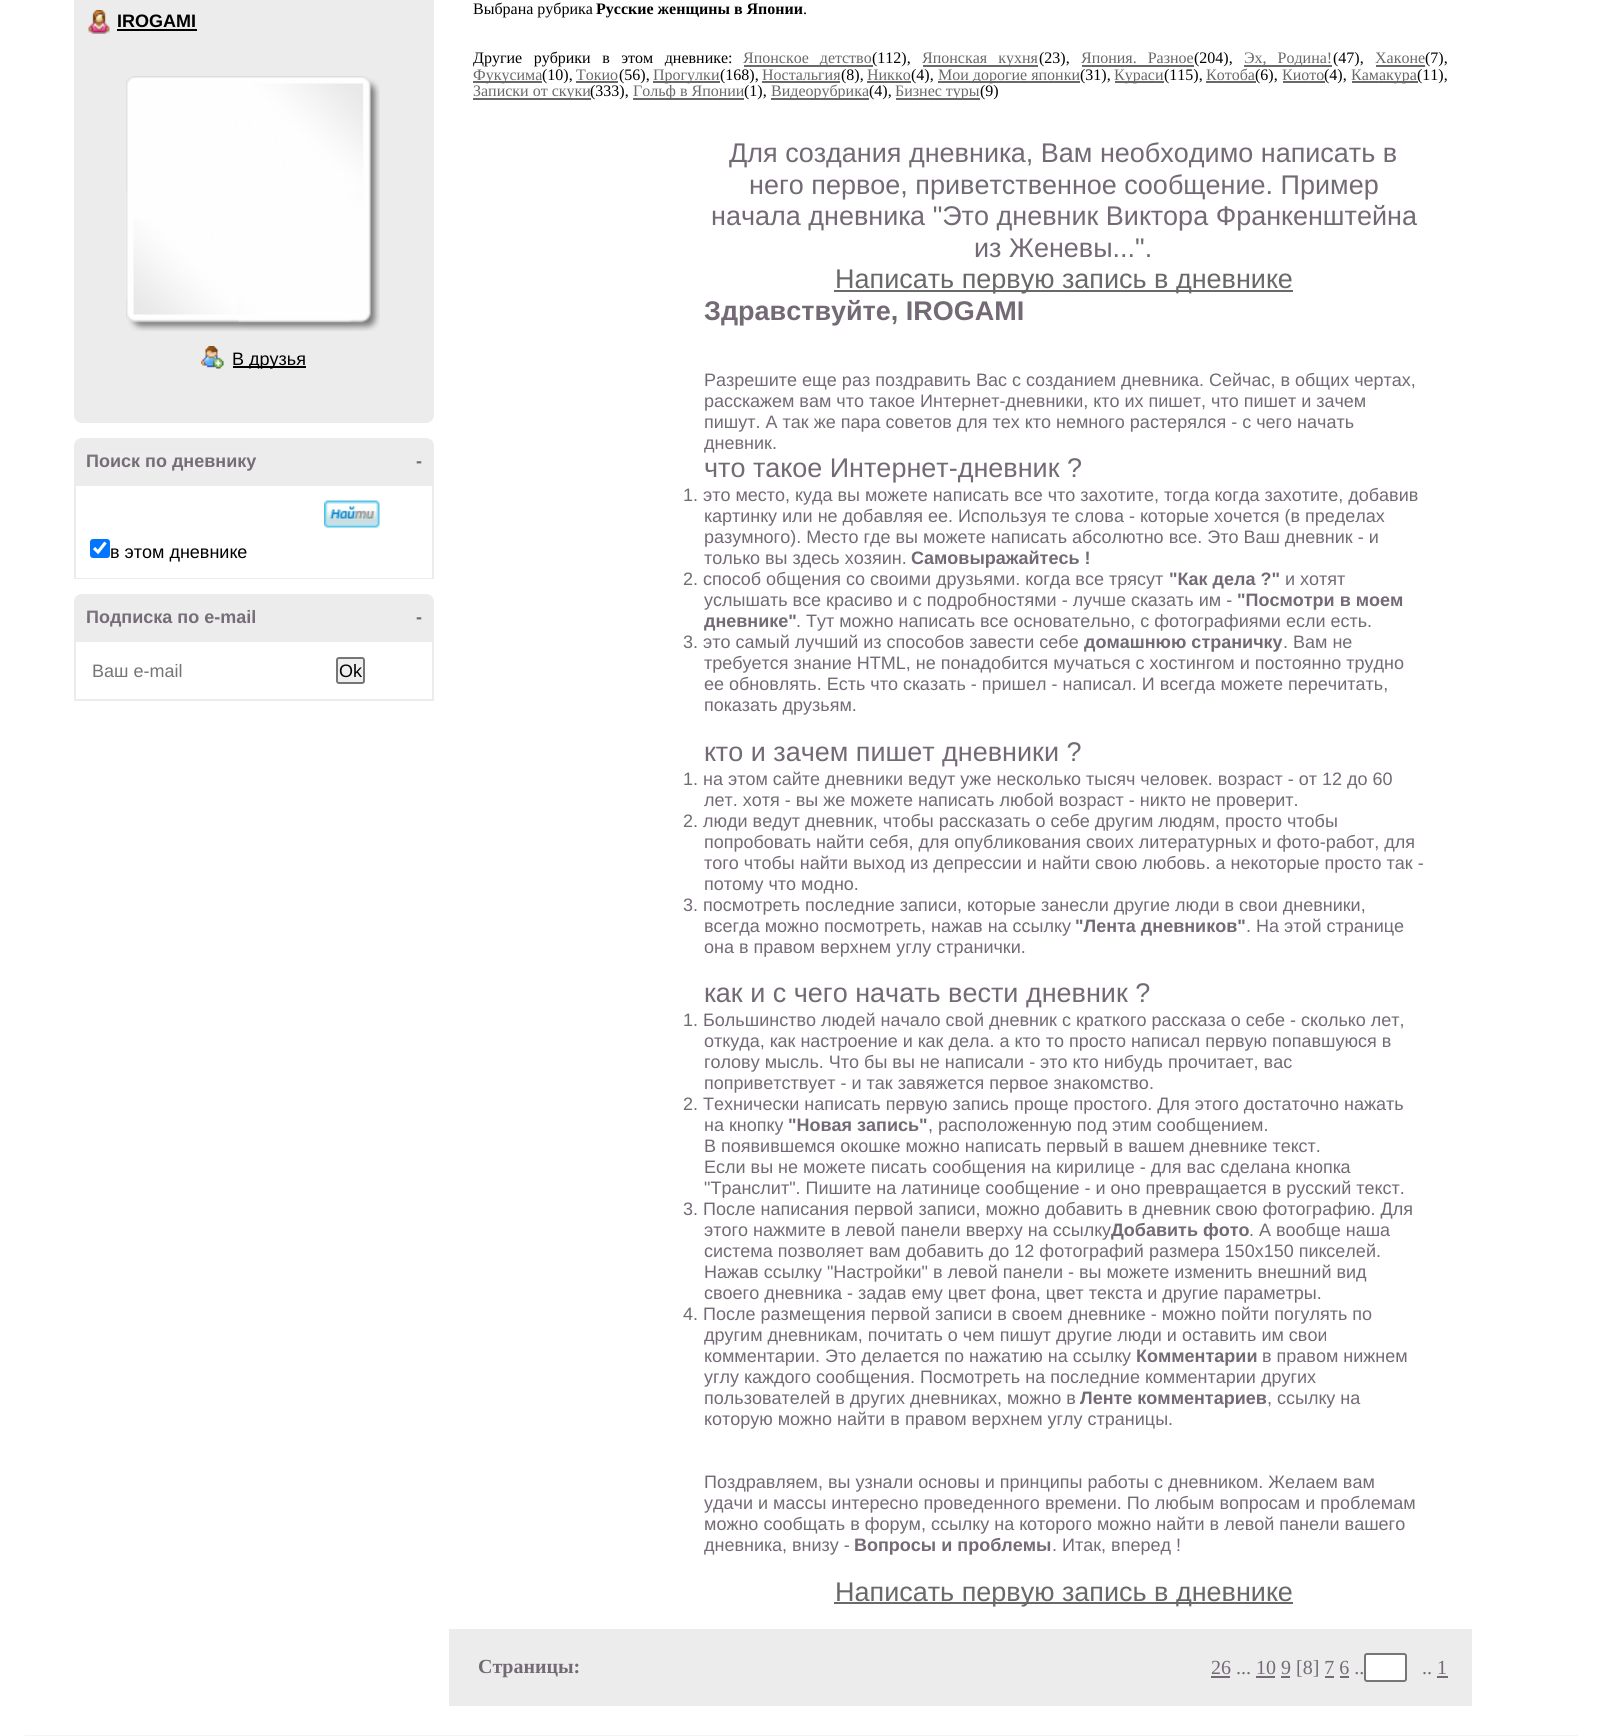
#include <cairo.h>
#include <math.h>
#include <stddef.h>

static cairo_t *c;
static void C(unsigned color){cairo_set_source_rgb(c, (color >> 16) / 255.0, (color >> 8 & 255) / 255.0, (color & 255) / 255.0);}
static void F(const char *family, double size, int italic, int bold){cairo_select_font_face(c, family, italic ? CAIRO_FONT_SLANT_ITALIC : CAIRO_FONT_SLANT_NORMAL,bold ? CAIRO_FONT_WEIGHT_BOLD : CAIRO_FONT_WEIGHT_NORMAL);cairo_set_font_size(c, size);}
static void T(double x, double y, const char *s){cairo_move_to(c, x, y);cairo_show_text(c, s);}
static void L(double x, double y, const char *s, double letter, double word){cairo_move_to(c, x, y);while (*s) {char ch[5] = {0};int n = 0;do ch[n++] = *s++; while ((*s & 0xC0) == 0x80);cairo_show_text(c, ch);cairo_rel_move_to(c, letter + word * (*ch == ' '), 0);}}
static void R(double x, double y, double w, double h){cairo_rectangle(c, x, y, w, h);cairo_fill(c);}
static void Q(double x, double y, double w, double h, double r){cairo_new_sub_path(c);cairo_arc(c, x + w - r, y + h - r, r, 0, M_PI / 2);cairo_arc(c, x + r, y + h - r, r, M_PI / 2, M_PI);cairo_arc(c, x + r, y + r, r, M_PI, 1.5 * M_PI);cairo_arc(c, x + w - r, y + r, r, 1.5 * M_PI, 2 * M_PI);cairo_close_path(c);}
static void I(const char *path, double x, double y, double w, double h){cairo_surface_t *image = cairo_image_surface_create_from_png(path);cairo_save(c);cairo_set_source_surface(c, image, x, y);cairo_rectangle(c, x, y, w, h);cairo_fill(c);cairo_restore(c);cairo_surface_destroy(image);}
int main(void) {
cairo_surface_t *surface = cairo_image_surface_create(CAIRO_FORMAT_RGB24, 1602, 1736);
c = cairo_create(surface);
cairo_font_options_t *options = cairo_font_options_create();
cairo_font_options_set_hint_metrics(options, CAIRO_HINT_METRICS_OFF);
cairo_font_options_set_hint_style(options, CAIRO_HINT_STYLE_NONE);
cairo_set_font_options(c, options);
cairo_set_miter_limit(c, 4);
C(0xffffff);
cairo_paint(c);
C(0xececec);
Q(74,-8,360,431,8);
cairo_fill(c);
I("1.png",88,10,22,24);
F("Liberation Sans",18,0,1);
C(0x000000);
T(117,27,"IROGAMI");
R(117,29,80,2);
I("2.png",126,76,254,255);
I("3.png",201,346,23,23);
R(233,366,73,2);
F("Liberation Sans",18,0,0);
T(232,365,"В друзья");
C(0xececec);
cairo_new_path(c);
cairo_move_to(c,82,439);
cairo_line_to(c,426,439);
cairo_curve_to(c,430,439,433,442,433,446);
cairo_line_to(c,433,485);
cairo_line_to(c,75,485);
cairo_line_to(c,75,446);
cairo_curve_to(c,75,442,78,439,82,439);
cairo_close_path(c);
cairo_fill_preserve(c);
cairo_stroke(c);
F("Liberation Sans",18,0,1);
C(0x736a75);
T(86,467,"Поиск по дневнику");
T(416,467,"-");
I("4.png",86,454,169,17);
C(0xececec);
R(432,486,2,93);
R(74,578,360,1);
R(74,486,2,93);
I("5.png",324,500,56,28);
C(0x0075ff);
Q(90,539,20,19,3);
cairo_fill(c);
cairo_new_path(c);
cairo_move_to(c,94,548);
cairo_line_to(c,98,552);
cairo_line_to(c,105.5,542.5);
C(0xffffff);
cairo_set_line_width(c,3.1);
cairo_stroke(c);
F("Liberation Sans",18,0,0);
C(0x000000);
T(110,558,"в этом дневнике");
C(0xececec);
cairo_new_path(c);
cairo_move_to(c,82,595);
cairo_line_to(c,426,595);
cairo_curve_to(c,430,595,433,598,433,602);
cairo_line_to(c,433,641);
cairo_line_to(c,75,641);
cairo_line_to(c,75,602);
cairo_curve_to(c,75,598,78,595,82,595);
cairo_close_path(c);
cairo_fill_preserve(c);
cairo_set_line_width(c,2);
cairo_stroke(c);
F("Liberation Sans",18,0,1);
C(0x736a75);
T(86,623,"Подписка по e-mail");
T(416,623,"-");
I("6.png",86,610,169,17);
C(0xececec);
R(432,642,2,59);
R(74,699,360,2);
R(74,642,2,59);
F("Liberation Sans",18,0,0);
C(0x757575);
T(92,677,"Ваш e-mail");
C(0xefefef);
Q(337,658,27,25,2);
cairo_fill_preserve(c);
C(0x767676);
cairo_stroke(c);
C(0x000000);
T(339,677,"Ok");
F("Liberation Serif",16,0,0);
T(473,14,"Выбрана рубрика");
F("Liberation Serif",16,0,1);
T(596,14,"Русские женщины в Японии");
F("Liberation Serif",16,0,0);
T(803,14,".");
L(473,63,"Другие рубрики в этом дневнике:",0,7.5);
C(0x696969);
R(744,65,129,2);
L(743,63,"Японское детство",0,7);
C(0x000000);
T(872,63,"(112),");
C(0x696969);
R(923,65,115,2);
L(922,63,"Японская кухня",0,7);
C(0x000000);
T(1039,63,"(23),");
C(0x696969);
L(1081,63,"Япония. Разное",0,7);
R(1082,65,112,2);
C(0x000000);
T(1194,63,"(204),");
C(0x696969);
R(1244,65,88,2);
L(1244,63,"Эх, Родина!",0,7);
C(0x000000);
T(1333,63,"(47),");
C(0x696969);
T(1375,63,"Хаконе");
R(1376,65,49,2);
C(0x000000);
T(1425,63,"(7),");
C(0x696969);
R(473,81,69,2);
T(473,80,"Фукусима");
C(0x000000);
T(542,80,"(10),");
C(0x696969);
T(576,80,"Токио");
R(576,81,42,2);
C(0x000000);
T(619,80,"(56),");
C(0x696969);
R(653,81,67,2);
T(653,80,"Прогулки");
C(0x000000);
T(720,80,"(168),");
C(0x696969);
T(762,80,"Ностальгия");
R(762,81,78,2);
C(0x000000);
T(841,80,"(8),");
C(0x696969);
T(867,80,"Никко");
R(867,81,44,2);
C(0x000000);
T(911,80,"(4),");
C(0x696969);
R(938,81,142,2);
T(938,80,"Мои дорогие японки");
C(0x000000);
T(1080,80,"(31),");
C(0x696969);
R(1115,81,49,2);
T(1114,80,"Кураси");
C(0x000000);
T(1164,80,"(115),");
C(0x696969);
T(1206,80,"Котоба");
R(1206,81,50,2);
C(0x000000);
T(1255,80,"(6),");
C(0x696969);
T(1282,80,"Киото");
R(1283,81,42,2);
C(0x000000);
T(1324,80,"(4),");
C(0x696969);
R(1352,81,66,2);
T(1351,80,"Камакура");
C(0x000000);
T(1417,80,"(11),");
C(0x696969);
R(473,98,118,2);
T(473,96,"Записки от скуки");
C(0x000000);
T(590,96,"(333),");
C(0x696969);
R(633,98,111,2);
T(633,96,"Гольф в Японии");
C(0x000000);
T(744,96,"(1),");
C(0x696969);
R(771,98,98,2);
T(771,96,"Видеорубрика");
C(0x000000);
T(869,96,"(4),");
C(0x696969);
R(896,98,84,2);
T(895,96,"Бизнес туры");
C(0x000000);
T(980,96,"(9)");
F("Liberation Sans",27,0,0);
C(0x736a75);
T(729,162,"Для создания дневника, Вам необходимо написать в");
T(749,194,"него первое, приветственное сообщение. Пример");
T(711,225,"начала дневника \"Это дневник Виктора Франкенштейна");
T(974,257,"из Женевы...\".");
C(0x696969);
R(834,290,459,2);
T(835,288,"Написать первую запись в дневнике");
F("Liberation Sans",27,0,1);
C(0x736a75);
T(704,320,"Здравствуйте, IROGAMI");
F("Liberation Sans",18,0,0);
T(704,386,"Разрешите еще раз поздравить Вас с созданием дневника. Сейчас, в общих чертах,");
T(704,407,"расскажем вам что такое Интернет-дневники, кто их пишет, что пишет и зачем");
T(704,428,"пишут. А так же пара советов для тех кто немного растерялся - с чего начать");
T(704,449,"дневник.");
F("Liberation Sans",27,0,0);
T(704,477,"что такое Интернет-дневник ?");
F("Liberation Sans",18,0,0);
T(683,501,"1. это место, куда вы можете написать все что захотите, тогда когда захотите, добавив");
T(704,522,"картинку или не добавляя ее. Используя те слова - которые хочется (в пределах");
T(704,543,"разумного). Место где вы можете написать абсолютно все. Это Ваш дневник - и");
T(704,564,"только вы здесь хозяин.");
F("Liberation Sans",18,0,1);
T(911,564,"Самовыражайтесь !");
F("Liberation Sans",18,0,0);
T(683,585,"2. способ общения со своими друзьями. когда все трясут");
F("Liberation Sans",18,0,1);
T(1169,585,"\"Как дела ?\"");
F("Liberation Sans",18,0,0);
T(1285,585,"и хотят");
T(704,606,"услышать все красиво и с подробностями - лучше сказать им -");
F("Liberation Sans",18,0,1);
T(1237,606,"\"Посмотри в моем");
T(704,627,"дневнике\"");
F("Liberation Sans",18,0,0);
T(796,627,". Тут можно написать все основательно, с фотографиями если есть.");
T(683,648,"3. это самый лучший из способов завести себе");
F("Liberation Sans",18,0,1);
T(1084,648,"домашнюю страничку");
F("Liberation Sans",18,0,0);
T(1283,648,". Вам не");
T(704,669,"требуется знание HTML, не понадобится мучаться с хостингом и постоянно трудно");
T(704,690,"ее обновлять. Есть что сказать - пришел - написал. И всегда можете перечитать,");
T(704,711,"показать друзьям.");
F("Liberation Sans",27,0,0);
T(704,761,"кто и зачем пишет дневники ?");
F("Liberation Sans",18,0,0);
T(683,785,"1. на этом сайте дневники ведут уже несколько тысяч человек. возраст - от 12 до 60");
T(704,806,"лет. хотя - вы же можете написать любой возраст - никто не проверит.");
T(683,827,"2. люди ведут дневник, чтобы рассказать о себе другим людям, просто чтобы");
T(704,848,"попробовать найти себя, для опубликования своих литературных и фото-работ, для");
T(704,869,"того чтобы найти выход из депрессии и найти свою любовь. а некоторые просто так -");
T(704,890,"потому что модно.");
T(683,911,"3. посмотреть последние записи, которые занесли другие люди в свои дневники,");
T(704,932,"всегда можно посмотреть, нажав на ссылку");
F("Liberation Sans",18,0,1);
T(1075,932,"\"Лента дневников\"");
F("Liberation Sans",18,0,0);
T(1246,932,". На этой странице");
T(704,953,"она в правом верхнем углу странички.");
F("Liberation Sans",27,0,0);
T(704,1002,"как и с чего начать вести дневник ?");
F("Liberation Sans",18,0,0);
T(683,1026,"1. Большинство людей начало свой дневник с краткого рассказа о себе - сколько лет,");
T(704,1047,"откуда, как настроение и как дела. а кто то просто написал первую попавшуюся в");
T(704,1068,"голову мысль. Что бы вы не написали - это кто нибудь прочитает, вас");
T(704,1089,"поприветствует - и так завяжется первое знакомство.");
T(683,1110,"2. Технически написать первую запись проще простого. Для этого достаточно нажать");
T(704,1131,"на кнопку");
F("Liberation Sans",18,0,1);
T(788,1131,"\"Новая запись\"");
F("Liberation Sans",18,0,0);
T(928,1131,", расположенную под этим сообщением.");
T(704,1152,"В появившемся окошке можно написать первый в вашем дневнике текст.");
T(704,1173,"Если вы не можете писать сообщения на кирилице - для вас сделана кнопка");
T(704,1194,"\"Транслит\". Пишите на латинице сообщение - и оно превращается в русский текст.");
T(683,1215,"3. После написания первой записи, можно добавить в дневник свою фотографию. Для");
T(704,1236,"этого нажмите в левой панели вверху на ссылку");
F("Liberation Sans",18,0,1);
T(1111,1236,"Добавить фото");
F("Liberation Sans",18,0,0);
T(1249,1236,". А вообще наша");
T(704,1257,"система позволяет вам добавить до 12 фотографий размера 150х150 пикселей.");
T(704,1278,"Нажав ссылку \"Настройки\" в левой панели - вы можете изменить внешний вид");
T(704,1299,"своего дневника - задав ему цвет фона, цвет текста и другие параметры.");
T(683,1320,"4. После размещения первой записи в своем дневнике - можно пойти погулять по");
T(704,1341,"другим дневникам, почитать о чем пишут другие люди и оставить им свои");
T(704,1362,"комментарии. Это делается по нажатию на ссылку");
F("Liberation Sans",18,0,1);
T(1136,1362,"Комментарии");
F("Liberation Sans",18,0,0);
T(1262,1362,"в правом нижнем");
T(704,1383,"углу каждого сообщения. Посмотреть на последние комментарии других");
T(704,1404,"пользователей в других дневниках, можно в");
F("Liberation Sans",18,0,1);
T(1080,1404,"Ленте комментариев");
F("Liberation Sans",18,0,0);
T(1267,1404,", ссылку на");
T(704,1425,"которую можно найти в правом верхнем углу страницы.");
T(704,1488,"Поздравляем, вы узнали основы и принципы работы с дневником. Желаем вам");
T(704,1509,"удачи и массы интересно проведенного времени. По любым вопросам и проблемам");
T(704,1530,"можно сообщать в форум, ссылку на которого можно найти в левой панели вашего");
T(704,1551,"дневника, внизу -");
F("Liberation Sans",18,0,1);
T(854,1551,"Вопросы и проблемы");
F("Liberation Sans",18,0,0);
T(1052,1551,". Итак, вперед !");
C(0x696969);
R(834,1602,459,2);
F("Liberation Sans",27,0,0);
T(835,1601,"Написать первую запись в дневнике");
C(0xececec);
R(449,1629,1023,77);
F("Liberation Serif",20,0,1);
C(0x736a75);
T(478,1673,"Страницы:");
R(1211,1676,19,2);
F("Liberation Serif",20,0,0);
T(1211,1674,"26 ... 10 9 [8] 7 6 ..");
C(0xffffff);
Q(1365,1654,41,27,2);
cairo_fill_preserve(c);
C(0x767676);
cairo_stroke(c);
C(0x736a75);
T(1422,1674,".. 1");
R(1256,1676,19,2);
R(1281,1676,9,2);
R(1325,1676,9,2);
R(1340,1676,9,2);
R(1437,1676,11,2);
C(0xf4f4f5);
R(25,1735,1553,1);
I("7.png",15,1735,10,1);
cairo_surface_write_to_png(surface, "o.png");
cairo_font_options_destroy(options);
cairo_destroy(c);
cairo_surface_destroy(surface);
return 0;
}
